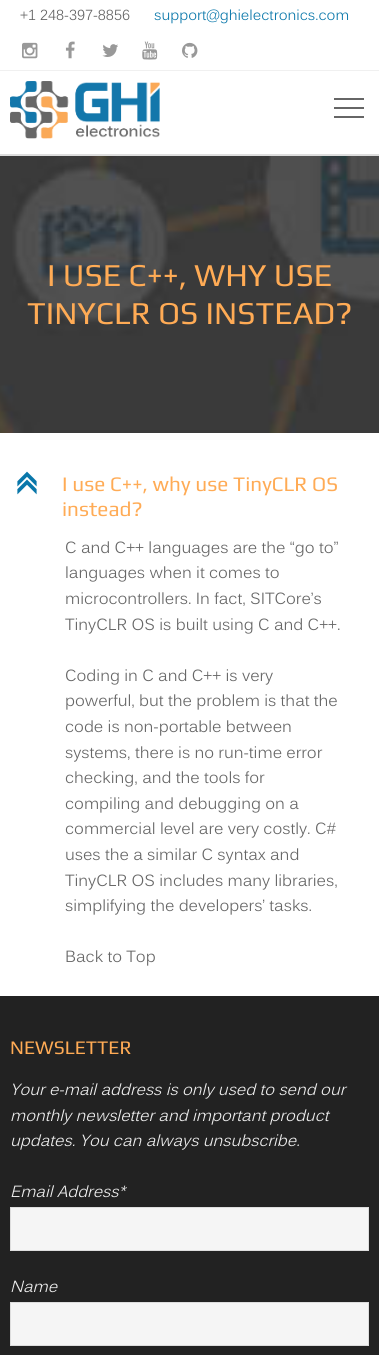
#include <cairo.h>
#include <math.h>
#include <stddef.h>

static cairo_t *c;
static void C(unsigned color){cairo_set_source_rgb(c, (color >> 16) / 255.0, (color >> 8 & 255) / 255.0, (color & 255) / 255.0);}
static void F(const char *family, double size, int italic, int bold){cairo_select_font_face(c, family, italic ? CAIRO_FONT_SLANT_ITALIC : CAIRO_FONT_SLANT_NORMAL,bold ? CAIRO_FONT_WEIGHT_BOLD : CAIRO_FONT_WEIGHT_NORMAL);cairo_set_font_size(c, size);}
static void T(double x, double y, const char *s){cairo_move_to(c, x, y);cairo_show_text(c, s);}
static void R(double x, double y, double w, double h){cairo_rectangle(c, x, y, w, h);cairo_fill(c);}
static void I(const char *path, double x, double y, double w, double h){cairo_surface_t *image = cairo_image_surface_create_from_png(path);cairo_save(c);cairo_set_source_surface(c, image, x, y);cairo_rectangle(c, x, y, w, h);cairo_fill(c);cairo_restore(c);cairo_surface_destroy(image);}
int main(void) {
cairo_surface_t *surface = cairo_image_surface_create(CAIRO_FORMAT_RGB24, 379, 1355);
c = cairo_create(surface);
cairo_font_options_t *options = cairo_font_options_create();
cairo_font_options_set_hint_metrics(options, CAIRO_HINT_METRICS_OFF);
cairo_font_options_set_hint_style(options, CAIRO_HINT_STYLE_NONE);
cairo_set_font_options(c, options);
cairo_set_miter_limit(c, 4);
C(0xffffff);
cairo_paint(c);
I("1.png",0,156,379,277);
C(0xf0f0f0);
R(0,70,379,1);
F("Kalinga",14.4,0,0);
C(0x666666);
T(20,20,"+1 248-397-8856");
C(0x0977aa);
T(154,20,"support@ghielectronics.com");
I("2.png",22,42,16,17);
I("3.png",65,41,10,18);
I("4.png",102,44,16,13);
I("5.png",142,41,16,19);
I("6.png",182,42,16,16);
C(0xdddddd);
R(0,154,379,2);
I("7.png",10,81,150,58);
C(0x666666);
R(334,98,30,2);
R(334,116,30,2);
R(334,107,30,2);
F("Play",32,0,0);
C(0xffab55);
T(47,286,"I USE C++, WHY USE");
T(27,324,"TINYCLR OS INSTEAD?");
I("8.png",17,471,20,24);
F("Play",20.75,0,0);
T(62,491,"I use C++, why use TinyCLR OS");
T(62,516,"instead?");
F("Kalinga",16,0,0);
C(0x666666);
T(65,553,"C and C++ languages are the “go to”");
T(65,578,"languages when it comes to");
T(65,604,"microcontrollers. In fact, SITCore’s");
T(65,630,"TinyCLR OS is built using C and C++.");
T(65,681,"Coding in C and C++ is very");
T(65,706,"powerful, but the problem is that the");
T(65,732,"code is non-portable between");
T(65,758,"systems, there is no run-time error");
T(65,783,"checking, and the tools for");
T(65,809,"compiling and debugging on a");
T(65,834,"commercial level are very costly. C#");
T(65,860,"uses the a similar C syntax and");
T(65,886,"TinyCLR OS includes many libraries,");
T(65,911,"simplifying the developers’ tasks.");
T(65,962,"Back to Top");
C(0x222222);
R(0,996,379,359);
F("Play",19.25,0,0);
C(0xffab55);
T(10,1054,"NEWSLETTER");
F("Kalinga",16,1,0);
C(0xeeeeee);
T(10,1095,"Your e-mail address is only used to send our");
T(10,1121,"monthly newsletter and important product");
T(10,1146,"updates. You can always unsubscribe.");
T(10,1197,"Email Address*");
C(0xf5f5f5);
cairo_rectangle(c,10.5,1207.5,358,43);
cairo_fill_preserve(c);
C(0xdddddd);
cairo_set_line_width(c,1);
cairo_stroke(c);
C(0xeeeeee);
T(10,1292,"Name");
C(0xf5f5f5);
cairo_rectangle(c,10.5,1302.5,358,43);
cairo_fill_preserve(c);
C(0xdddddd);
cairo_stroke(c);
cairo_surface_write_to_png(surface, "o.png");
cairo_font_options_destroy(options);
cairo_destroy(c);
cairo_surface_destroy(surface);
return 0;
}
